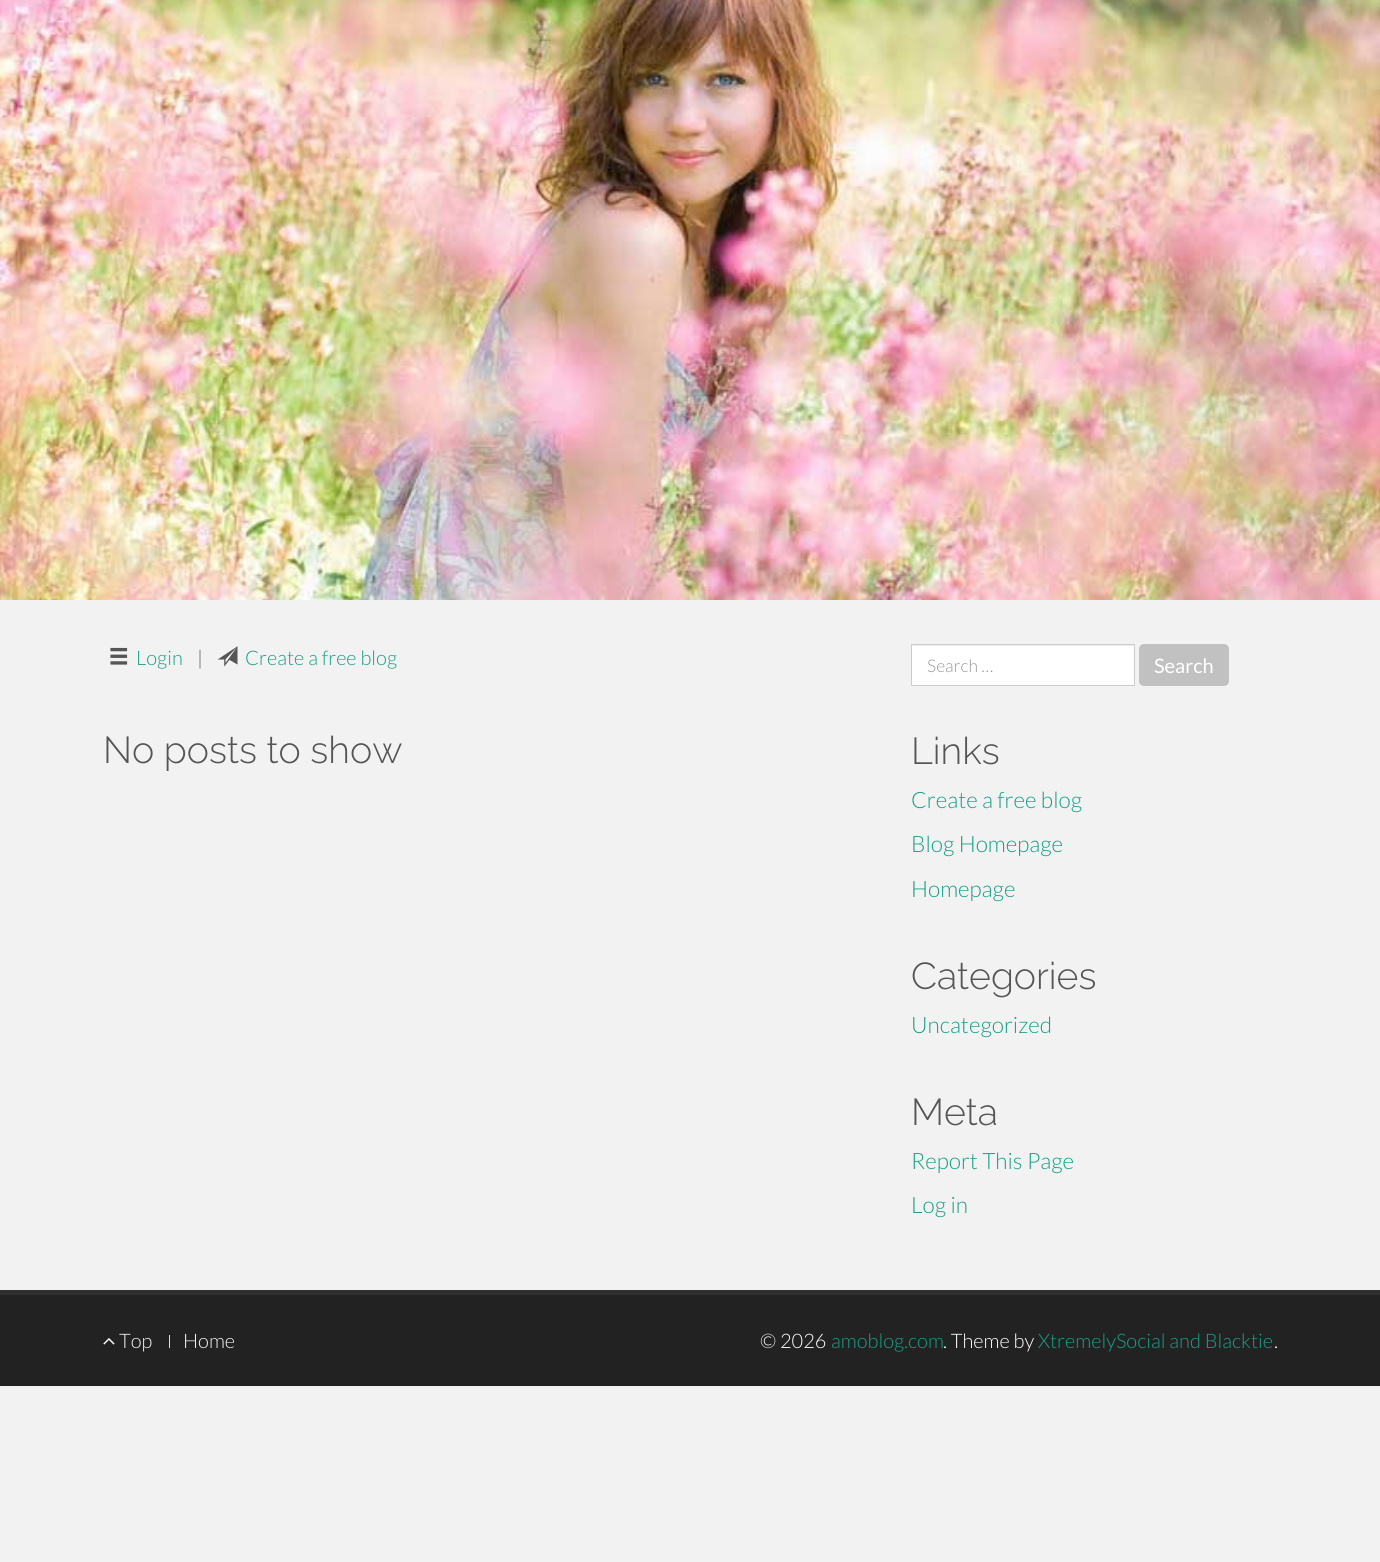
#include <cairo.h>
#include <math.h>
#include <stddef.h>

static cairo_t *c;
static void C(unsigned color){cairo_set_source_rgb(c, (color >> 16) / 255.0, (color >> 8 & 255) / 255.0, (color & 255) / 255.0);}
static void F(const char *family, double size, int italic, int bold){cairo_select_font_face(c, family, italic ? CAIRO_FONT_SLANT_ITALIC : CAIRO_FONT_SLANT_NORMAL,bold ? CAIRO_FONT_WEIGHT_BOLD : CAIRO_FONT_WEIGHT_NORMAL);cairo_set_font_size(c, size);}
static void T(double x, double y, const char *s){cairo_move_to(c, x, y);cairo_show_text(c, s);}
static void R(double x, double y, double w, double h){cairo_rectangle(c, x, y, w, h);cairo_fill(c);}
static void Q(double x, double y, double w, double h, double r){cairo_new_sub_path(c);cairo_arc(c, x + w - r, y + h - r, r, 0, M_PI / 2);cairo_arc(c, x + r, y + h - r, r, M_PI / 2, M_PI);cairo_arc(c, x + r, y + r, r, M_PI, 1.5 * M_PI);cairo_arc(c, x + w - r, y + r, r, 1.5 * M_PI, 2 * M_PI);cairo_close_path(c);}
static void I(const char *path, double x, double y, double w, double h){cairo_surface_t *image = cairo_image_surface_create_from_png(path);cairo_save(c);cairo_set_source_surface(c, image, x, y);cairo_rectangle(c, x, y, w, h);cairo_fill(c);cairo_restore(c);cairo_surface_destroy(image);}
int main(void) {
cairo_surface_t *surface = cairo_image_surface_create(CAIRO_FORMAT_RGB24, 1380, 1562);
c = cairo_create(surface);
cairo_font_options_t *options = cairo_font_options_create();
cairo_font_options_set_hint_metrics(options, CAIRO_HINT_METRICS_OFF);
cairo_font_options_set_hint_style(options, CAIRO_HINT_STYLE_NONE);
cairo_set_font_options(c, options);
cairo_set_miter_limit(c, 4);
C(0xf2f2f2);
cairo_paint(c);
I("1.png",0,0,1380,600);
I("2.png",110,647,18,18);
F("Lato Light",20,0,0);
C(0x16a085);
T(136,665,"Login");
C(0x555555);
T(197,665,"|");
I("3.png",217,646,21,21);
C(0x16a085);
T(245,665,"Create a free blog");
F("Raleway Light",37.5,0,0);
C(0x555555);
T(103,763,"No posts to show");
C(0xffffff);
R(912,645,222,40);
C(0xececec);
R(913,645,221,1);
cairo_rectangle(c,911.5,644.5,223,41);
C(0xcccccc);
cairo_set_line_width(c,1);
cairo_stroke(c);
F("Lato Light",17.5,0,0);
C(0x999999);
T(927,672,"Search …");
C(0xc1c1c1);
Q(1139,644,90,42,5);
cairo_fill(c);
F("Lato",20,0,0);
C(0xffffff);
T(1154,673,"Search");
F("Raleway Light",37.5,0,0);
C(0x555555);
T(911,764,"Links");
F("Lato Light",22.5,0,0);
C(0x16a085);
T(911,808,"Create a free blog");
T(911,852,"Blog Homepage");
T(911,897,"Homepage");
F("Raleway Light",37.5,0,0);
C(0x555555);
T(911,989,"Categories");
F("Lato Light",22.5,0,0);
C(0x16a085);
T(911,1033,"Uncategorized");
F("Raleway Light",37.5,0,0);
C(0x555555);
T(911,1125,"Meta");
F("Lato Light",22.5,0,0);
C(0x16a085);
T(911,1169,"Report This Page");
T(911,1213,"Log in");
C(0x2f2f2f);
R(0,1290,1380,5);
C(0x222222);
R(0,1295,1380,91);
I("4.png",103,1338,12,7);
F("Lato Light",20,0,0);
C(0xf2f2f2);
T(119,1348,"Top");
C(0xdddddd);
R(169,1335,1,13);
C(0xf2f2f2);
T(183,1348,"Home");
C(0xffffff);
T(760,1348,"© 2026");
C(0x16a085);
T(831,1348,"amoblog.com");
C(0xffffff);
T(943,1348,". Theme by");
C(0x16a085);
T(1038,1348,"XtremelySocial and Blacktie");
C(0xffffff);
T(1274,1348,".");
cairo_surface_write_to_png(surface, "o.png");
cairo_font_options_destroy(options);
cairo_destroy(c);
cairo_surface_destroy(surface);
return 0;
}
